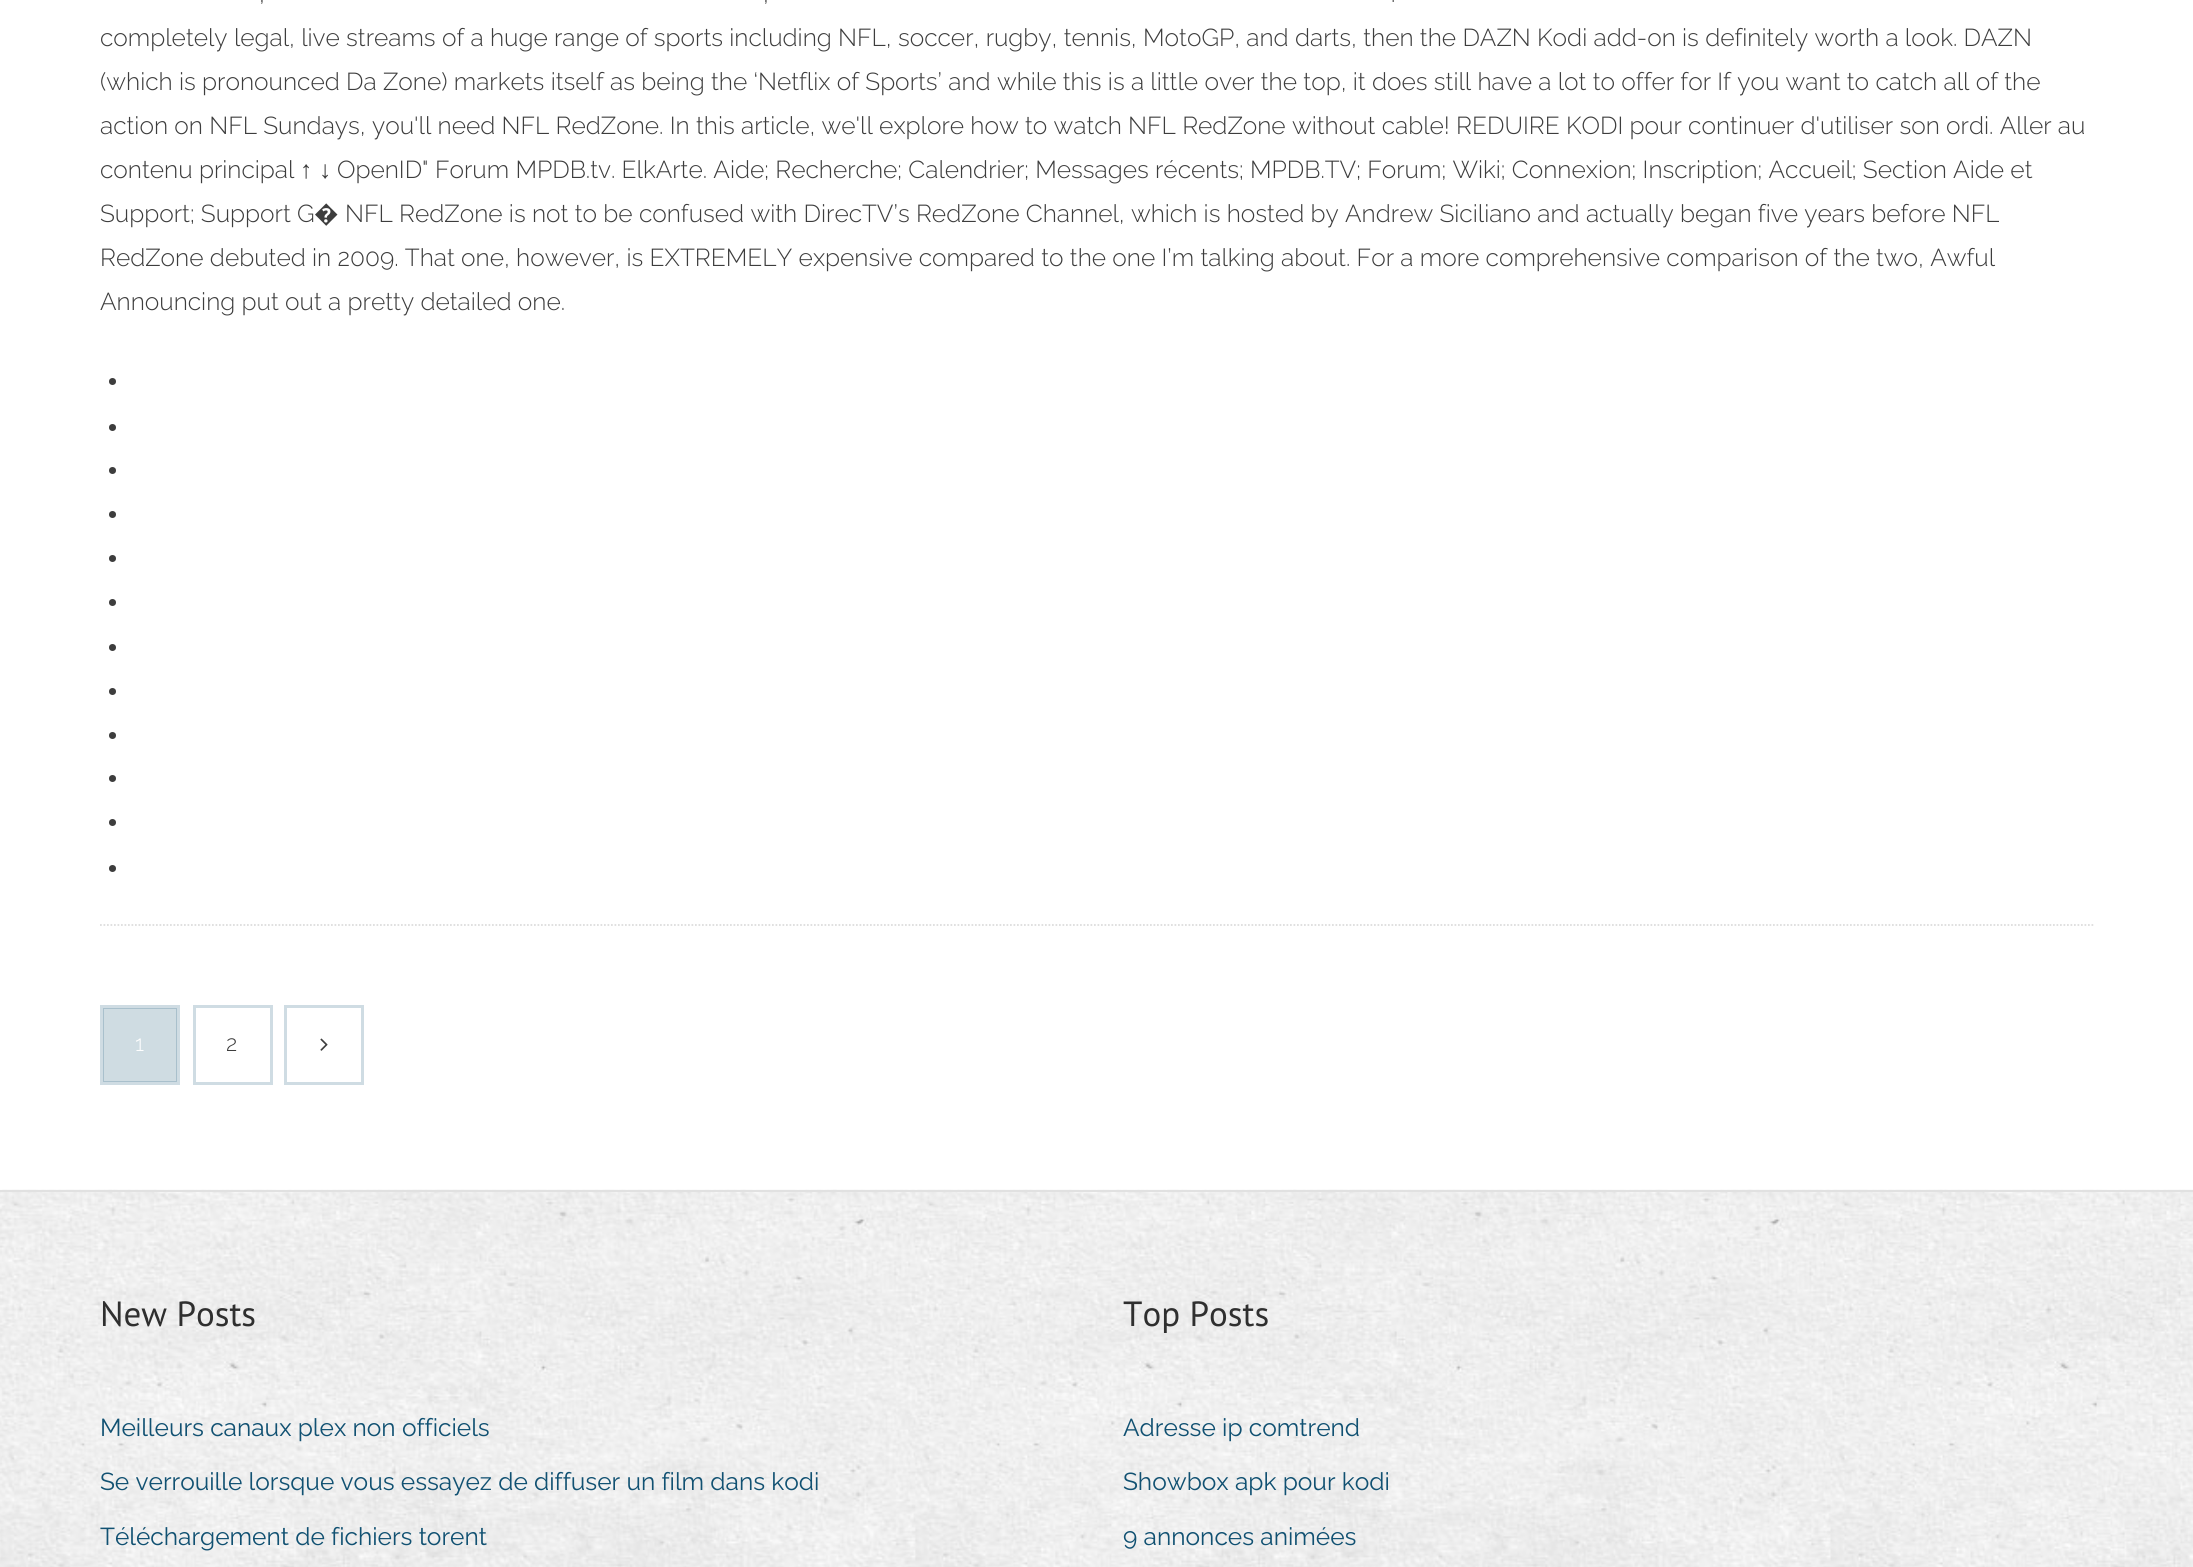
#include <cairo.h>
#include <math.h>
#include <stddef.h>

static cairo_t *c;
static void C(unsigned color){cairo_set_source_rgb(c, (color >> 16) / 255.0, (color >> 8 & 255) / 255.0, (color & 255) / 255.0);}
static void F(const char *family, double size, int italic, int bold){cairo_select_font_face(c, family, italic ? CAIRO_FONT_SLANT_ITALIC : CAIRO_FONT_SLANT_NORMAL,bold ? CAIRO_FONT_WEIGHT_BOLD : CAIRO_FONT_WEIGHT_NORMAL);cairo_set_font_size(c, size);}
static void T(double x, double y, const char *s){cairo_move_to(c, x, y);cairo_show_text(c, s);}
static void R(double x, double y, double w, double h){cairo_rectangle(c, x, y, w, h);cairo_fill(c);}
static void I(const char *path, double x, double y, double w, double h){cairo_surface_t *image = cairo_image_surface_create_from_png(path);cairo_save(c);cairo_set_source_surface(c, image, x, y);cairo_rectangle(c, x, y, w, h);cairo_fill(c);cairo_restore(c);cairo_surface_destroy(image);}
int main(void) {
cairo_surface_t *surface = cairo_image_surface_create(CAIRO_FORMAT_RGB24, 2193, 1567);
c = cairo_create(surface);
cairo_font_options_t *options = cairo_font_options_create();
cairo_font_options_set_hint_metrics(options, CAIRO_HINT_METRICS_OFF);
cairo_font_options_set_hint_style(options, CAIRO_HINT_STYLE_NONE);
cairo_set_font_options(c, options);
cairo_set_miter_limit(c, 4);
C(0xffffff);
cairo_paint(c);
cairo_new_path(c);
cairo_move_to(c,100,925);
cairo_line_to(c,2095,925);
C(0xdddddd);
cairo_set_line_width(c,1.8);
cairo_set_dash(c,(double[]){1.75,1.75},2,0);
cairo_stroke(c);
F("Raleway Light",24.5,0,0);
C(0x3d3d3d);
T(259,2,",");
T(763,2,",");
T(1391,2,".");
T(100,46,"completely legal, live streams of a huge range of sports including NFL, soccer, rugby, tennis, MotoGP, and darts, then the DAZN Kodi add-on is definitely worth a look. DAZN");
T(100,90,"(which is pronounced Da Zone) markets itself as being the ‘Netflix of Sports’ and while this is a little over the top, it does still have a lot to offer for If you want to catch all of the");
T(100,134,"action on NFL Sundays, you'll need NFL RedZone. In this article, we'll explore how to watch NFL RedZone without cable! REDUIRE KODI pour continuer d'utiliser son ordi. Aller au");
T(100,178,"contenu principal");
F("Liberation Sans",24.5,0,0);
T(300,178,"↑");
T(319,178,"↓");
F("Raleway Light",24.5,0,0);
T(337,178,"OpenID\" Forum MPDB.tv. ElkArte. Aide; Recherche; Calendrier; Messages récents; MPDB.TV; Forum; Wiki; Connexion; Inscription; Accueil; Section Aide et");
T(100,222,"Support; Support G");
F("Noto Sans Light",24.5,0,0);
T(314,222,"�");
F("Raleway Light",24.5,0,0);
T(345,222,"NFL RedZone is not to be confused with DirecTV’s RedZone Channel, which is hosted by Andrew Siciliano and actually began five years before NFL");
T(100,266,"RedZone debuted in 2009. That one, however, is EXTREMELY expensive compared to the one I’m talking about. For a more comprehensive comparison of the two, Awful");
T(100,310,"Announcing put out a pretty detailed one.");
cairo_new_path(c);
cairo_arc(c,112.5,381.5,3.5,0,2 * M_PI);
cairo_fill(c);
cairo_arc(c,112.5,427.5,3.5,0,2 * M_PI);
cairo_fill(c);
cairo_arc(c,112.5,470.5,3.5,0,2 * M_PI);
cairo_fill(c);
cairo_arc(c,112.5,514.5,3.5,0,2 * M_PI);
cairo_fill(c);
cairo_arc(c,112.5,558.5,3.5,0,2 * M_PI);
cairo_fill(c);
cairo_arc(c,112.5,602.5,3.5,0,2 * M_PI);
cairo_fill(c);
cairo_arc(c,112.5,647.5,3.5,0,2 * M_PI);
cairo_fill(c);
cairo_arc(c,112.5,691.5,3.5,0,2 * M_PI);
cairo_fill(c);
cairo_arc(c,112.5,735.5,3.5,0,2 * M_PI);
cairo_fill(c);
cairo_arc(c,112.5,778.5,3.5,0,2 * M_PI);
cairo_fill(c);
cairo_arc(c,112.5,822.5,3.5,0,2 * M_PI);
cairo_fill(c);
cairo_arc(c,112.5,868.5,3.5,0,2 * M_PI);
cairo_fill(c);
cairo_rectangle(c,102,1007,76,76);
C(0xcfdce3);
cairo_set_line_width(c,4);
cairo_set_dash(c,NULL,0,0);
cairo_stroke(c);
cairo_set_source_rgba(c,0.067,0.318,0.447,0.2);
R(103,1008,74,74);
F("Raleway Light",22,0,0);
C(0xffffff);
T(135,1051,"1");
cairo_rectangle(c,195,1007,76,76);
C(0xcfdce3);
cairo_stroke(c);
C(0xffffff);
R(196,1008,74,74);
C(0x3d3d3d);
T(226,1051,"2");
cairo_rectangle(c,286,1007,76,76);
C(0xcfdce3);
cairo_stroke(c);
C(0xffffff);
R(287,1008,74,74);
I("1.png",320,1038,8,13);
I("2.png",0,1189,2193,378);
C(0xe1e1e1);
R(0,1190,2193,2);
F("PT Sans",35,0,0);
C(0x2f2f2f);
T(100,1326,"New Posts");
F("Raleway",24.5,0,0);
C(0x115172);
T(100,1436,"Meilleurs canaux plex non officiels");
T(100,1490,"Se verrouille lorsque vous essayez de diffuser un film dans kodi");
T(100,1545,"Téléchargement de fichiers torent");
F("PT Sans",35,0,0);
C(0x2f2f2f);
T(1123,1326,"Top Posts");
F("Raleway",24.5,0,0);
C(0x115172);
T(1123,1436,"Adresse ip comtrend");
T(1123,1490,"Showbox apk pour kodi");
T(1123,1545,"9 annonces animées");
cairo_surface_write_to_png(surface, "o.png");
cairo_font_options_destroy(options);
cairo_destroy(c);
cairo_surface_destroy(surface);
return 0;
}
